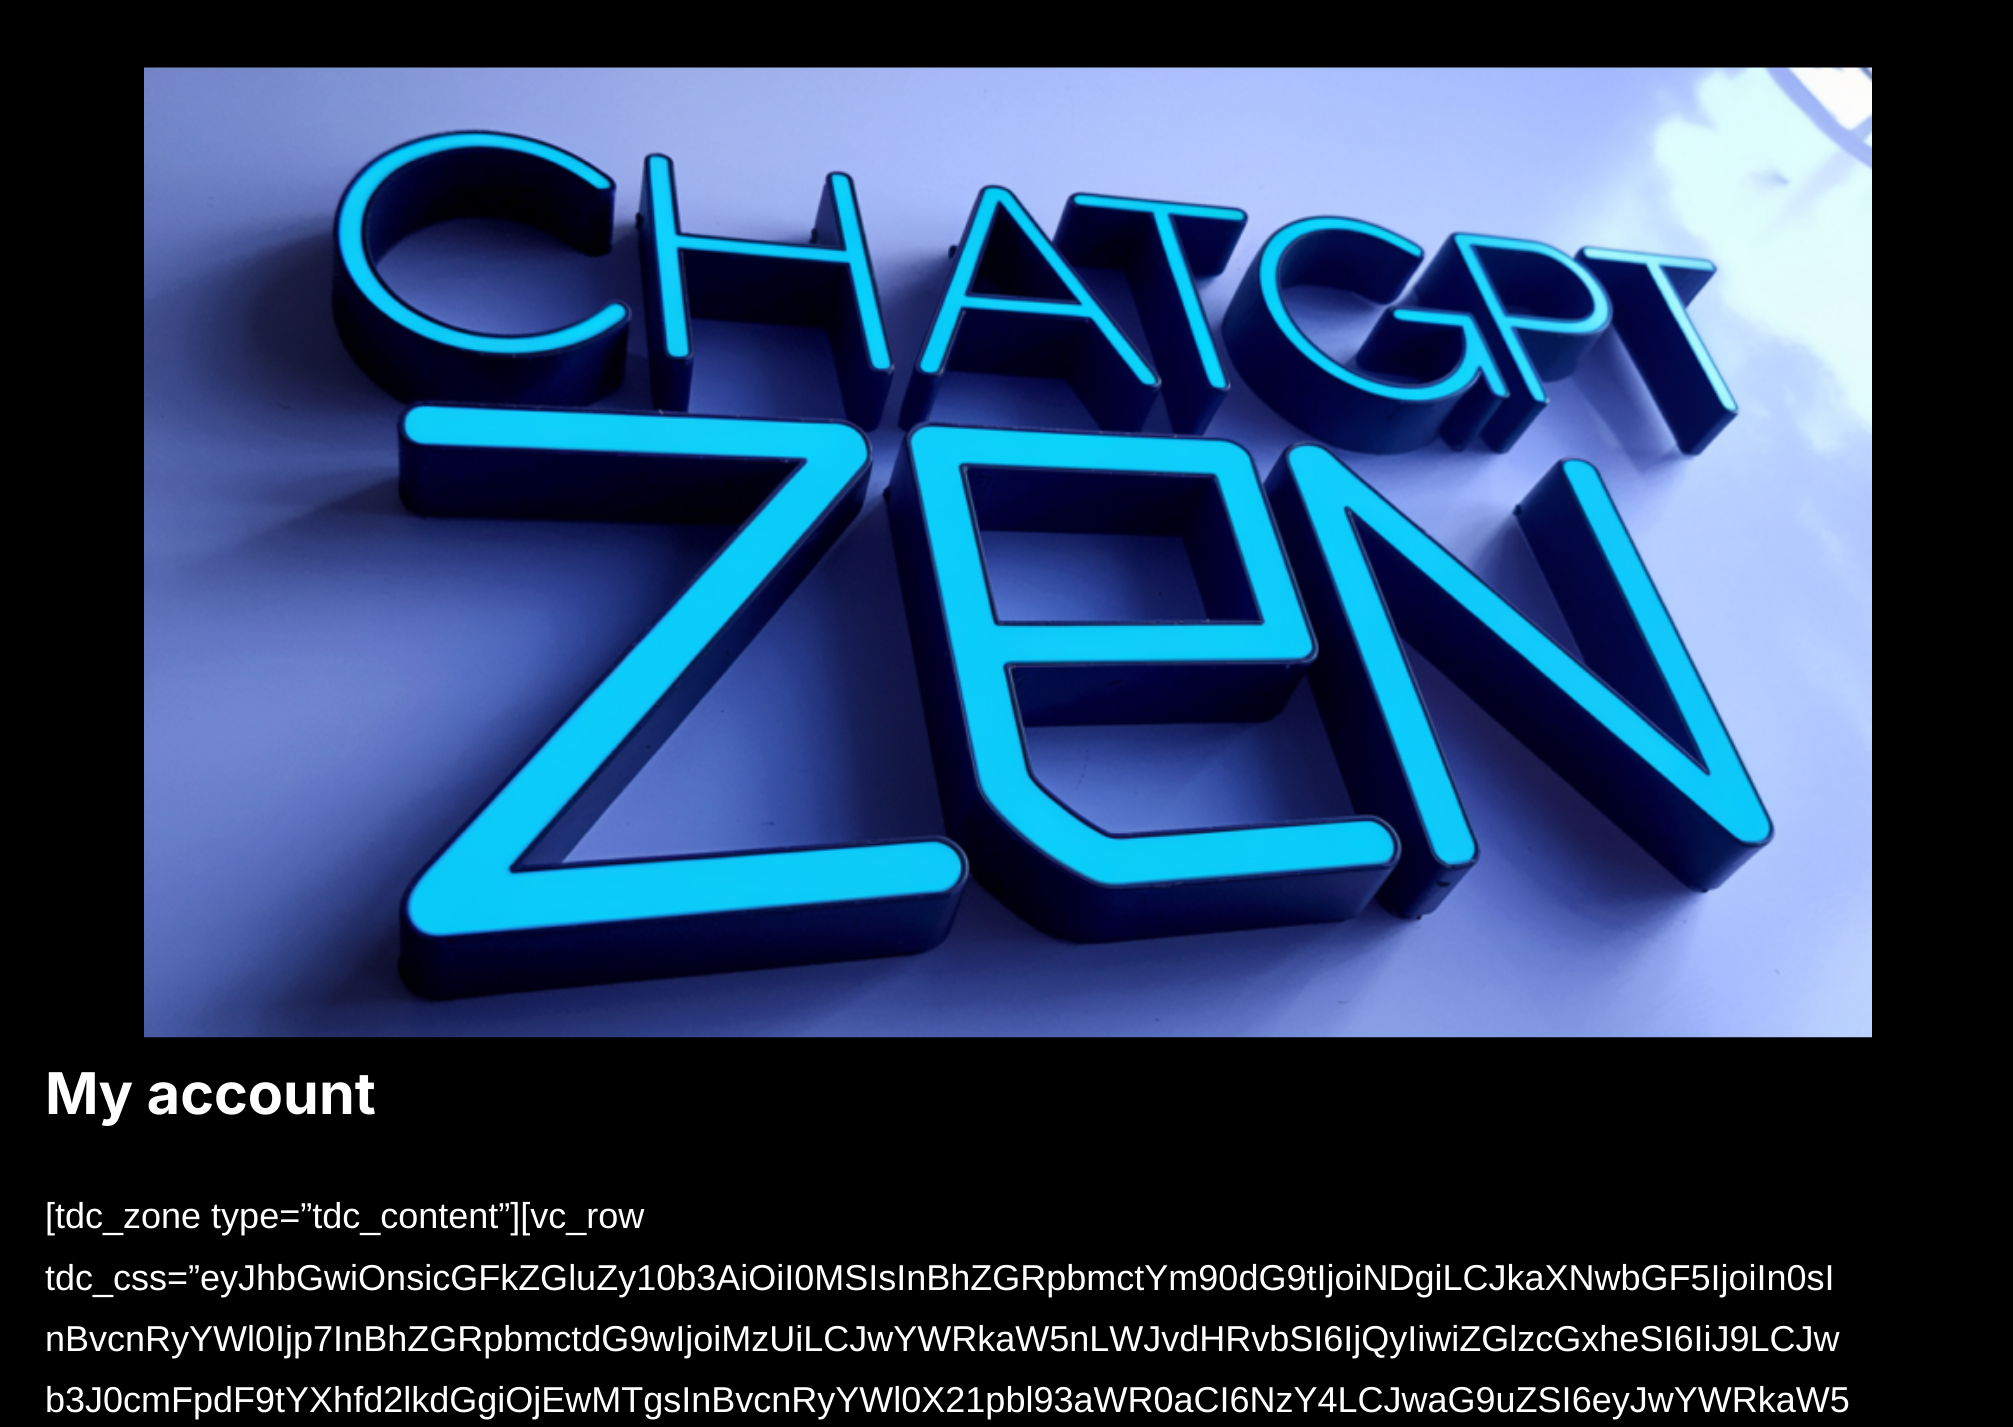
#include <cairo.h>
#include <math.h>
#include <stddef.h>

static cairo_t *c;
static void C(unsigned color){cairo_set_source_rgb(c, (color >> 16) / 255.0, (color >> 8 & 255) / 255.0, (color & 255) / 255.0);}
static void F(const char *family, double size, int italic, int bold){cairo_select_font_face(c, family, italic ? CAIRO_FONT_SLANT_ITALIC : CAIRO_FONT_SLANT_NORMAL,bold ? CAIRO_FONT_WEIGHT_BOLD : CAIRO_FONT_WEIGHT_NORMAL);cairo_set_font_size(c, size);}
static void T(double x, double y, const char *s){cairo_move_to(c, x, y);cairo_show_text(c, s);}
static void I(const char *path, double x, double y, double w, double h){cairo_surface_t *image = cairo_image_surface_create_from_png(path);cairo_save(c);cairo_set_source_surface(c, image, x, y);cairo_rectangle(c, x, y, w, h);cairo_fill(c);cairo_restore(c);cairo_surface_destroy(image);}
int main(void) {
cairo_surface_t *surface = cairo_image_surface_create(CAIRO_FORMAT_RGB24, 2013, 1427);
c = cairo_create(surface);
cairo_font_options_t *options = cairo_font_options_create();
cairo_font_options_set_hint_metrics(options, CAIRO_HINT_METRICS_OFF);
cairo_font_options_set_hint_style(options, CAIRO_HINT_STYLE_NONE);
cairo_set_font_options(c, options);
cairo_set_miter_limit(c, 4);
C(0x000000);
cairo_paint(c);
I("1.png",144,67,1728,971);
F("Inter",57.5,0,1);
C(0xffffff);
T(45,1114,"My account");
F("Liberation Sans",36,0,0);
T(45,1228,"[tdc_zone type=”tdc_content”][vc_row");
T(45,1290,"tdc_css=”eyJhbGwiOnsicGFkZGluZy10b3AiOiI0MSIsInBhZGRpbmctYm90dG9tIjoiNDgiLCJkaXNwbGF5IjoiIn0sI");
T(45,1351,"nBvcnRyYWl0Ijp7InBhZGRpbmctdG9wIjoiMzUiLCJwYWRkaW5nLWJvdHRvbSI6IjQyIiwiZGlzcGxheSI6IiJ9LCJw");
T(45,1412,"b3J0cmFpdF9tYXhfd2lkdGgiOjEwMTgsInBvcnRyYWl0X21pbl93aWR0aCI6NzY4LCJwaG9uZSI6eyJwYWRkaW5");
cairo_surface_write_to_png(surface, "o.png");
cairo_font_options_destroy(options);
cairo_destroy(c);
cairo_surface_destroy(surface);
return 0;
}
